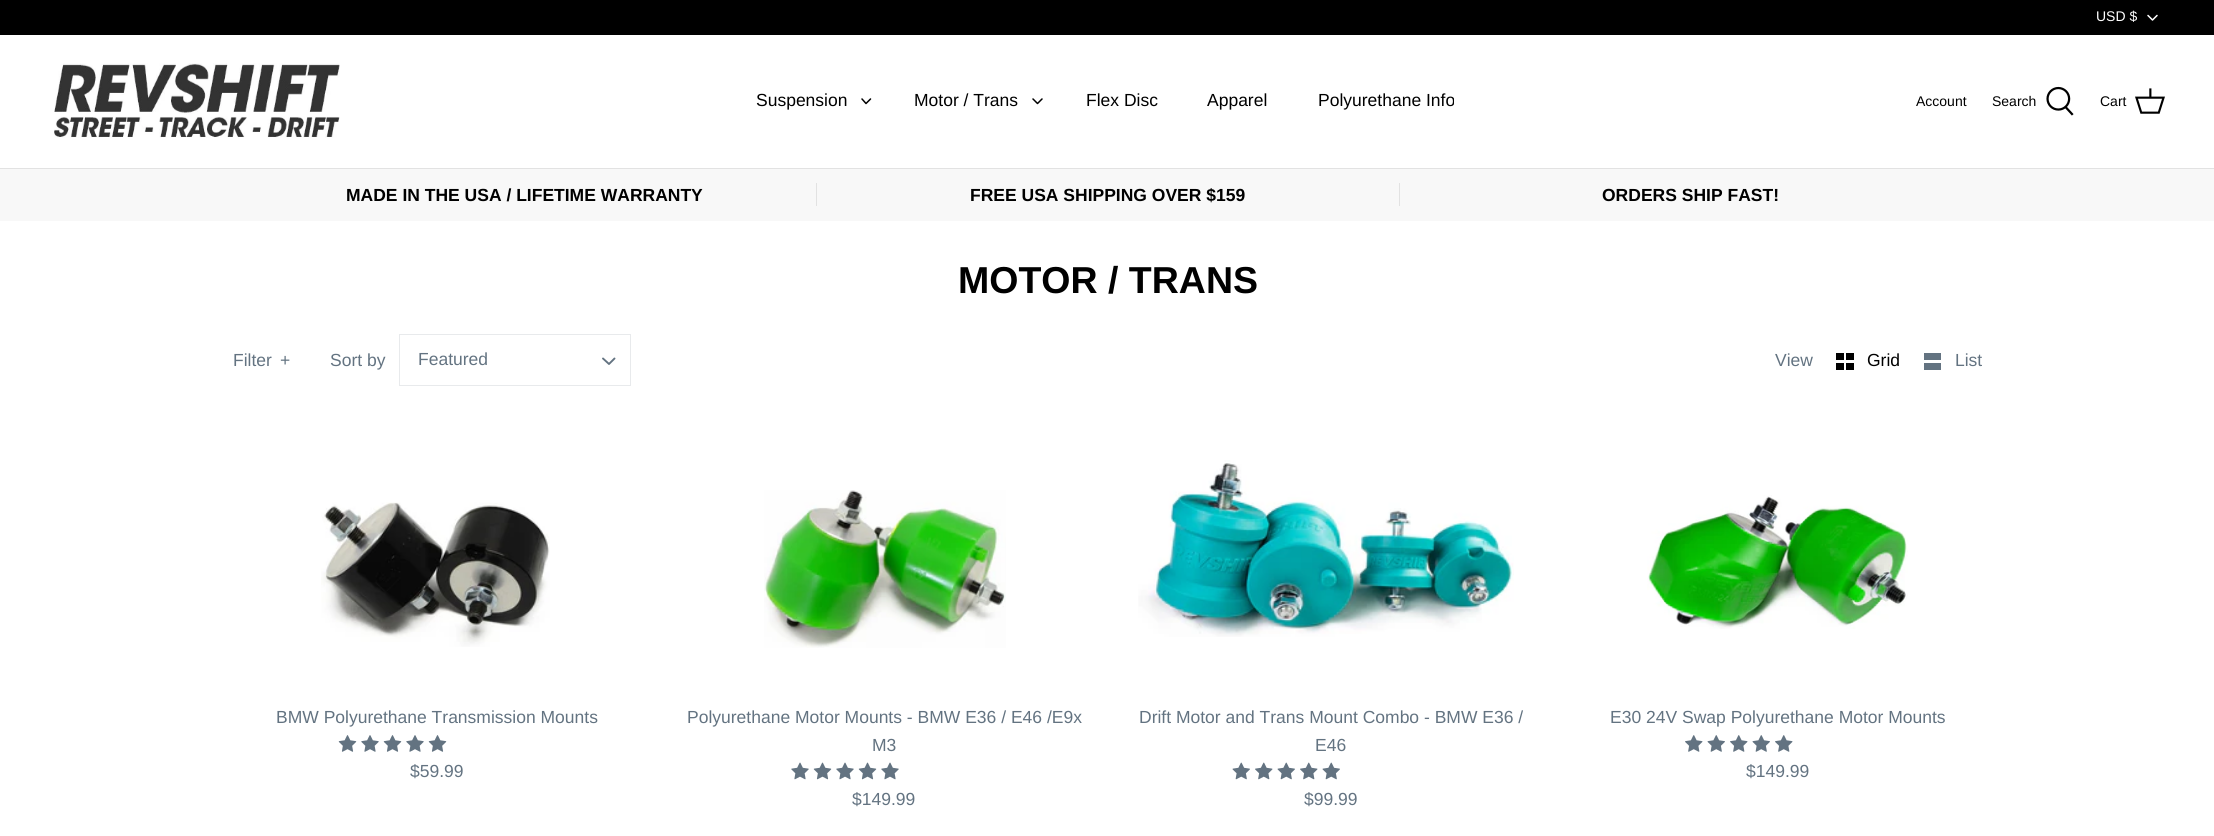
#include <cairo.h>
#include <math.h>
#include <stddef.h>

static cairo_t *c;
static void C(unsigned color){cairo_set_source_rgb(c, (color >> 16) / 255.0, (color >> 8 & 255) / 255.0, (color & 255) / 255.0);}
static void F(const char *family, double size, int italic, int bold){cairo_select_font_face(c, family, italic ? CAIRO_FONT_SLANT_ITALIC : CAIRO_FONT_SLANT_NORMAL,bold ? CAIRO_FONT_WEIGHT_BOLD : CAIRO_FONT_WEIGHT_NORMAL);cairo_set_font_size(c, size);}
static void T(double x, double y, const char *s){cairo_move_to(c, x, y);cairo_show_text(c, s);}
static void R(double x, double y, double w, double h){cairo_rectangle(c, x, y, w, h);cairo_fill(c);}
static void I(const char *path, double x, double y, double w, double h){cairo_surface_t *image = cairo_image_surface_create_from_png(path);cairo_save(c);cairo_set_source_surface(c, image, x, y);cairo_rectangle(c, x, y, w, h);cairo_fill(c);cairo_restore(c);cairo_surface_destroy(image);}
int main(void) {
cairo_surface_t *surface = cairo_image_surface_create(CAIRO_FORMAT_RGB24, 2214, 836);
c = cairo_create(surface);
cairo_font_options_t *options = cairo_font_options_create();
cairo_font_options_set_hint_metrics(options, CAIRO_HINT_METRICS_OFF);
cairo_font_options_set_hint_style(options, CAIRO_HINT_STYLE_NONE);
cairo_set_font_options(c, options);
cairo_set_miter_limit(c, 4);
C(0xffffff);
cairo_paint(c);
C(0x000000);
R(0,0,2214,35);
F("Liberation Sans",14,0,0);
C(0xffffff);
T(2096,21,"USD $");
cairo_new_path(c);
cairo_move_to(c,2148,15.5);
cairo_line_to(c,2152.5,20);
cairo_line_to(c,2157,15.5);
cairo_set_line_width(c,1.5);
cairo_set_line_cap(c,CAIRO_LINE_CAP_ROUND);
cairo_set_line_join(c,CAIRO_LINE_JOIN_ROUND);
cairo_stroke(c);
C(0xe2e2e2);
R(0,168,2214,1);
I("1.png",54,63,286,75);
F("Liberation Sans",17.5,0,0);
C(0x000000);
T(756,106,"Suspension");
cairo_new_path(c);
cairo_move_to(c,862,99);
cairo_line_to(c,866,103.5);
cairo_line_to(c,870.5,99);
cairo_stroke(c);
T(914,106,"Motor / Trans");
cairo_new_path(c);
cairo_move_to(c,1033,99);
cairo_line_to(c,1037.5,103.5);
cairo_line_to(c,1042,99);
cairo_stroke(c);
T(1086,106,"Flex Disc");
T(1207,106,"Apparel");
T(1318,106,"Polyurethane Info");
F("Liberation Sans",14,0,0);
T(1916,106,"Account");
T(1992,106,"Search");
I("2.png",2046,86,28,30);
T(2100,106,"Cart");
I("3.png",2135,88,30,26);
C(0xf8f8f8);
R(0,169,2214,52);
F("Liberation Sans",17.5,0,1);
C(0x000000);
T(346,201,"MADE IN THE USA / LIFETIME WARRANTY");
C(0xe2e2e2);
R(816,183,1,23);
C(0x000000);
T(970,201,"FREE USA SHIPPING OVER $159");
C(0xe2e2e2);
R(1399,183,1,23);
C(0x000000);
T(1602,201,"ORDERS SHIP FAST!");
F("Liberation Sans",37.5,0,1);
T(958,293,"MOTOR / TRANS");
F("Liberation Sans",17.5,0,0);
C(0x637381);
T(233,366,"Filter");
T(280,366,"+");
T(330,366,"Sort by");
cairo_rectangle(c,399.5,334.5,231,51);
C(0xe8eaec);
cairo_set_line_width(c,1);
cairo_set_line_cap(c,CAIRO_LINE_CAP_BUTT);
cairo_set_line_join(c,CAIRO_LINE_JOIN_MITER);
cairo_stroke(c);
C(0x637381);
T(418,365,"Featured");
cairo_new_path(c);
cairo_move_to(c,603,358.5);
cairo_line_to(c,609,364);
cairo_line_to(c,614.5,358.5);
cairo_set_line_width(c,1.9);
cairo_set_line_cap(c,CAIRO_LINE_CAP_ROUND);
cairo_set_line_join(c,CAIRO_LINE_JOIN_ROUND);
cairo_stroke(c);
T(1775,366,"View");
C(0x000000);
R(1836,353,8,7);
R(1846,353,8,7);
T(1867,366,"Grid");
R(1836,363,8,7);
R(1846,363,8,7);
C(0x637381);
R(1924,353,17,7);
T(1955,366,"List");
R(1924,363,17,7);
I("4.png",321,502,229,145);
T(276,723,"BMW Polyurethane Transmission Mounts");
I("5.png",338,735,19,17);
I("6.png",361,735,18,17);
I("5.png",383,735,19,17);
I("6.png",406,735,18,17);
I("5.png",428,735,19,17);
T(410,777,"$59.99");
I("7.png",764,490,242,158);
T(687,723,"Polyurethane Motor Mounts - BMW E36 / E46 /E9x");
T(872,751,"M3");
I("8.png",791,762,18,18);
I("9.png",813,762,19,18);
I("8.png",836,762,18,18);
I("9.png",858,762,19,18);
I("8.png",881,762,18,18);
T(852,805,"$149.99");
I("10.png",1138,460,376,177);
T(1139,723,"Drift Motor and Trans Mount Combo - BMW E36 /");
T(1315,751,"E46");
I("11.png",1232,762,18,18);
I("12.png",1255,762,18,18);
I("11.png",1277,762,18,18);
I("12.png",1300,762,18,18);
I("11.png",1322,762,18,18);
T(1304,805,"$99.99");
I("13.png",1647,495,261,134);
T(1610,723,"E30 24V Swap Polyurethane Motor Mounts");
I("14.png",1685,735,18,17);
I("15.png",1707,735,18,17);
I("14.png",1730,735,18,17);
I("15.png",1752,735,18,17);
I("14.png",1775,735,18,17);
T(1746,777,"$149.99");
cairo_surface_write_to_png(surface, "o.png");
cairo_font_options_destroy(options);
cairo_destroy(c);
cairo_surface_destroy(surface);
return 0;
}
